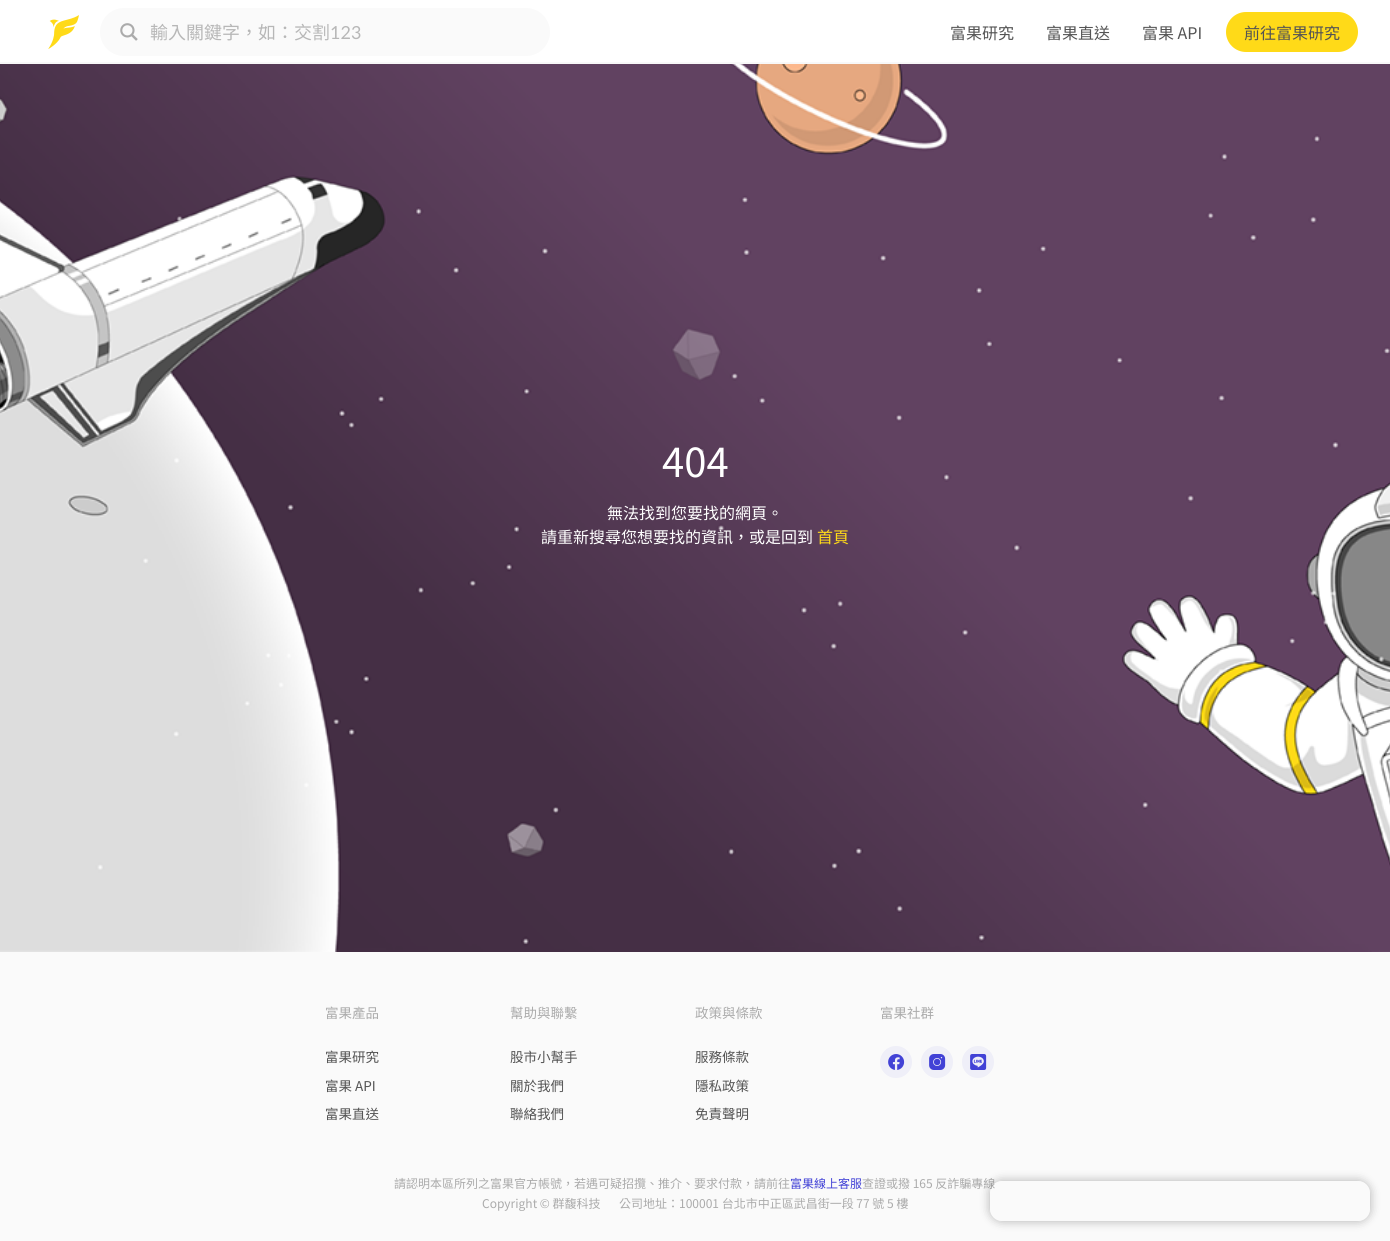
#include <cairo.h>
#include <math.h>
#include <stddef.h>

static cairo_t *c;
static void C(unsigned color){cairo_set_source_rgb(c, (color >> 16) / 255.0, (color >> 8 & 255) / 255.0, (color & 255) / 255.0);}
static void F(const char *family, double size, int italic, int bold){cairo_select_font_face(c, family, italic ? CAIRO_FONT_SLANT_ITALIC : CAIRO_FONT_SLANT_NORMAL,bold ? CAIRO_FONT_WEIGHT_BOLD : CAIRO_FONT_WEIGHT_NORMAL);cairo_set_font_size(c, size);}
static void T(double x, double y, const char *s){cairo_move_to(c, x, y);cairo_show_text(c, s);}
static void R(double x, double y, double w, double h){cairo_rectangle(c, x, y, w, h);cairo_fill(c);}
static void Q(double x, double y, double w, double h, double r){cairo_new_sub_path(c);cairo_arc(c, x + w - r, y + h - r, r, 0, M_PI / 2);cairo_arc(c, x + r, y + h - r, r, M_PI / 2, M_PI);cairo_arc(c, x + r, y + r, r, M_PI, 1.5 * M_PI);cairo_arc(c, x + w - r, y + r, r, 1.5 * M_PI, 2 * M_PI);cairo_close_path(c);}
static void S(double x, double y, double w, double h, double r, double blur, double alpha){cairo_push_group_with_content(c, CAIRO_CONTENT_ALPHA);cairo_set_operator(c, CAIRO_OPERATOR_SOURCE);for (int i = 15; i >= -15 && fmin(w, h) + blur * i / 3 > 0; i -= 2) {double e = blur * i / 6;cairo_set_source_rgba(c, 0, 0, 0, alpha * erfc((i - 1) / 8.5) / 2);Q(x - e, y - e, w + 2 * e, h + 2 * e, fmax(0, fmin(r + e + blur * .6, fmin(w, h) / 2 + e)));cairo_fill(c);}cairo_pattern_t *soft = cairo_pop_group(c);cairo_mask(c, soft);cairo_pattern_destroy(soft);}
static void I(const char *path, double x, double y, double w, double h){cairo_surface_t *image = cairo_image_surface_create_from_png(path);cairo_save(c);cairo_set_source_surface(c, image, x, y);cairo_rectangle(c, x, y, w, h);cairo_fill(c);cairo_restore(c);cairo_surface_destroy(image);}
int main(void) {
cairo_surface_t *surface = cairo_image_surface_create(CAIRO_FORMAT_RGB24, 1390, 1241);
c = cairo_create(surface);
cairo_font_options_t *options = cairo_font_options_create();
cairo_font_options_set_hint_metrics(options, CAIRO_HINT_METRICS_OFF);
cairo_font_options_set_hint_style(options, CAIRO_HINT_STYLE_NONE);
cairo_set_font_options(c, options);
cairo_set_miter_limit(c, 4);
C(0xffffff);
cairo_paint(c);
C(0xf8f8f8);
R(0,62,1390,2);
I("1.png",48,15,31,34);
C(0xfafafa);
Q(100,8,450,48,24);
cairo_fill(c);
I("2.png",120,23,18,18);
F("Noto Sans CJK TC",18,0,0);
C(0xb7b7b7);
T(150,39,"輸入關鍵字，如：交割");
F("Lato",18,0,0);
T(330,39,"123");
F("Noto Sans TC Thin",16,0,0);
C(0x545454);
T(950,39,"富果研究");
T(1046,39,"富果直送");
T(1142,39,"富果 API");
C(0xffda18);
Q(1226,12,132,40,20);
cairo_fill(c);
C(0x545454);
T(1244,39,"前往富果研究");
I("3.png",0,64,1390,888);
F("Noto Sans TC Thin",40,0,0);
C(0xffffff);
T(662,477,"404");
F("Noto Sans TC Thin",16,0,0);
T(607,519,"無法找到您要找的網頁。");
T(541,543,"請重新搜尋您想要找的資訊，或是回到");
C(0xffda18);
T(817,543,"首頁");
C(0xfafafa);
R(0,952,1390,289);
F("Noto Sans TC Thin",13.5,0,0);
C(0xababab);
T(325,1018,"富果產品");
C(0x545454);
T(325,1062,"富果研究");
T(325,1091,"富果 API");
T(325,1119,"富果直送");
C(0xababab);
T(510,1018,"幫助與聯繫");
C(0x545454);
T(510,1062,"股市小幫手");
T(510,1091,"關於我們");
T(510,1119,"聯絡我們");
C(0xababab);
T(695,1018,"政策與條款");
C(0x545454);
T(695,1062,"服務條款");
T(695,1091,"隱私政策");
T(695,1119,"免責聲明");
C(0xababab);
T(880,1018,"富果社群");
I("4.png",880,1046,32,32);
I("5.png",921,1046,32,32);
I("6.png",962,1046,32,32);
F("Noto Sans TC Thin",12,0,0);
T(394,1188,"請認明本區所列之富果官方帳號，若遇可疑招攬、推介、要求付款，請前往");
C(0x4242d6);
T(790,1188,"富果線上客服");
C(0xababab);
T(862,1188,"查證或撥 165 反詐騙專線");
T(482,1208,"Copyright © 群馥科技");
T(619,1208,"公司地址：100001 台北市中正區武昌街一段 77 號 5 樓");
cairo_save(c);
cairo_set_fill_rule(c,CAIRO_FILL_RULE_EVEN_ODD);
cairo_new_path(c);
cairo_move_to(c,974,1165);
cairo_line_to(c,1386,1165);
cairo_line_to(c,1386,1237);
cairo_line_to(c,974,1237);
cairo_close_path(c);
cairo_move_to(c,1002,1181);
cairo_line_to(c,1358,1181);
cairo_curve_to(c,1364.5,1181,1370,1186.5,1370,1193);
cairo_line_to(c,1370,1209);
cairo_curve_to(c,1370,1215.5,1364.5,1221,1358,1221);
cairo_line_to(c,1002,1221);
cairo_curve_to(c,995.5,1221,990,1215.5,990,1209);
cairo_line_to(c,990,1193);
cairo_curve_to(c,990,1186.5,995.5,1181,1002,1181);
cairo_close_path(c);
cairo_clip(c);
C(0x000000);
S(990,1181,380,40,12,5,.3);
cairo_restore(c);
cairo_surface_write_to_png(surface, "o.png");
cairo_font_options_destroy(options);
cairo_destroy(c);
cairo_surface_destroy(surface);
return 0;
}
